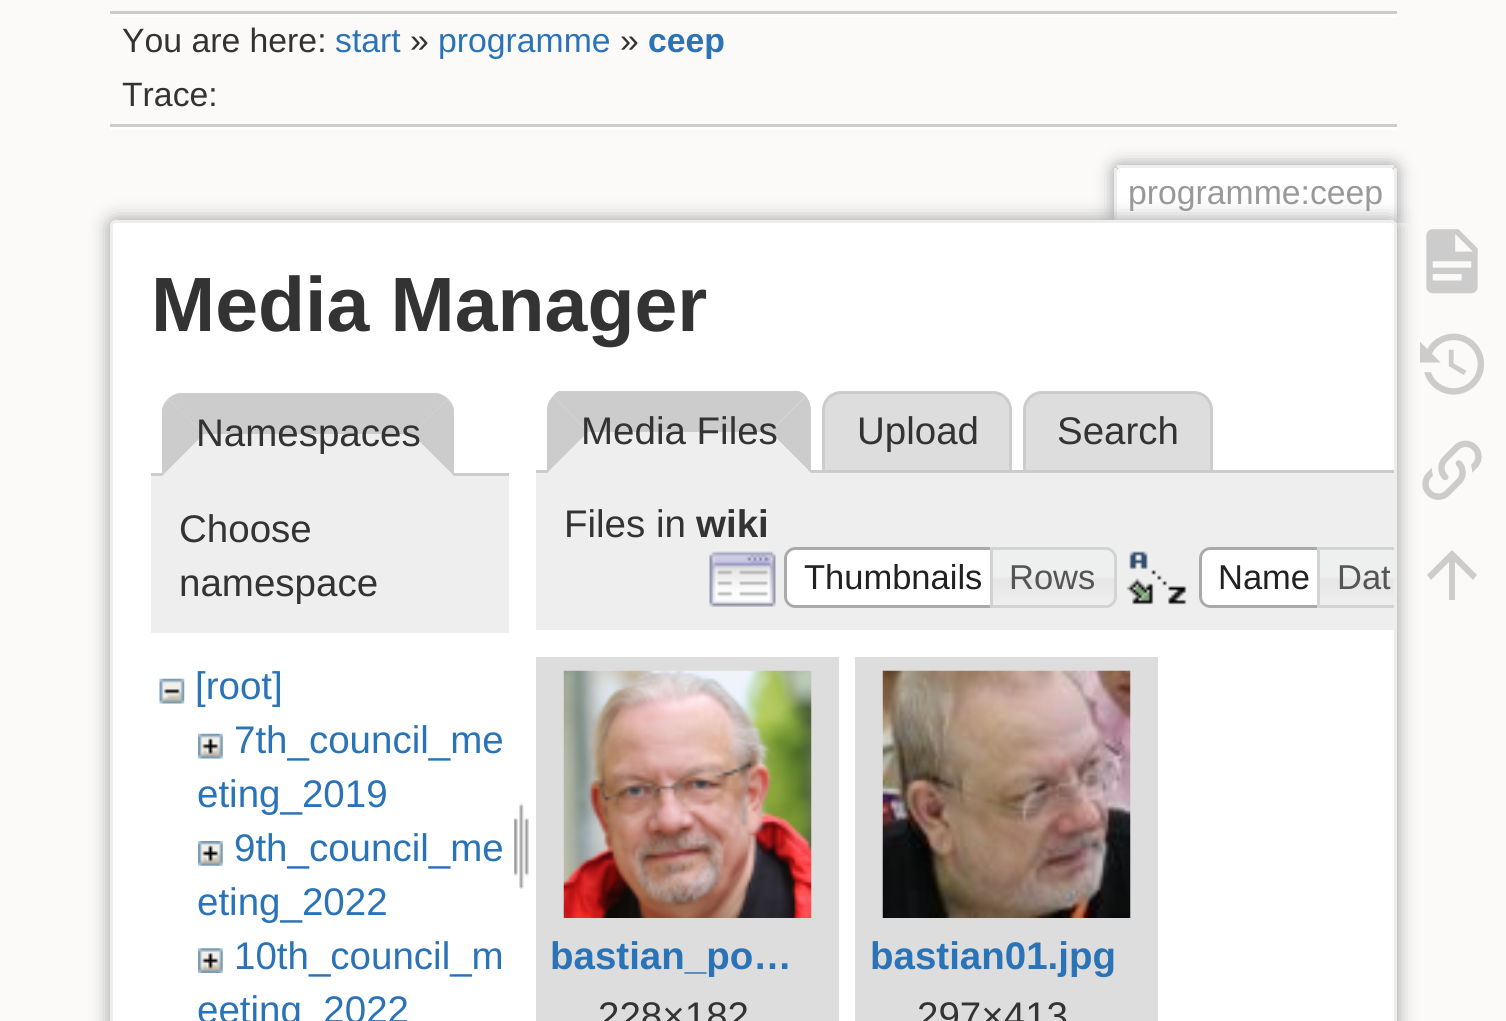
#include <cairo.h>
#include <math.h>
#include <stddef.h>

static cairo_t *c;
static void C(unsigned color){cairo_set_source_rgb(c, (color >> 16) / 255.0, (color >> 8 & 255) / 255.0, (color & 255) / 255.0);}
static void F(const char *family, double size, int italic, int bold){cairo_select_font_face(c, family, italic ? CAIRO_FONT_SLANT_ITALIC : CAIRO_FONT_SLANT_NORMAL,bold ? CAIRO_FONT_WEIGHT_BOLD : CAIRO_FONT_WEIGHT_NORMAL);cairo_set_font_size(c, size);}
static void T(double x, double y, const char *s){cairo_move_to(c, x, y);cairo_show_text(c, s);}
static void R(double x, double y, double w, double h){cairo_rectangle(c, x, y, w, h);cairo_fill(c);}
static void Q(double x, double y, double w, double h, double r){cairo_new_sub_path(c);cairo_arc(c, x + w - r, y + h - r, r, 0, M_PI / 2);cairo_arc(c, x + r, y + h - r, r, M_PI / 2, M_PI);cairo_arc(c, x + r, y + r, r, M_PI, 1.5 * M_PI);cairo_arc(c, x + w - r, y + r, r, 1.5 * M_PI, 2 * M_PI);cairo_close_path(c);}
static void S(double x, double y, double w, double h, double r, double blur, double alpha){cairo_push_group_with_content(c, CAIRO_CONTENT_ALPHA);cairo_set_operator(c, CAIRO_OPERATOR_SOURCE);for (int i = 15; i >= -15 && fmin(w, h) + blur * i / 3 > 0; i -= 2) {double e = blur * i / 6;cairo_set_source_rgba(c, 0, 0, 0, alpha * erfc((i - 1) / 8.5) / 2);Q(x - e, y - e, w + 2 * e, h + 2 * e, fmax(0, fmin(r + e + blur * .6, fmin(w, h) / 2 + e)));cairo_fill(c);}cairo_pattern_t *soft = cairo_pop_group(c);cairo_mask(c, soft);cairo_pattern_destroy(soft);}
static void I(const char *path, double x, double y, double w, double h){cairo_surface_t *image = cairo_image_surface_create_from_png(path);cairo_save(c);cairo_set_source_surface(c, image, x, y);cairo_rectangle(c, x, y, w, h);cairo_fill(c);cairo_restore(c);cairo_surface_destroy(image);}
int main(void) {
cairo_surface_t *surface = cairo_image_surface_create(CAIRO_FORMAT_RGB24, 1506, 1021);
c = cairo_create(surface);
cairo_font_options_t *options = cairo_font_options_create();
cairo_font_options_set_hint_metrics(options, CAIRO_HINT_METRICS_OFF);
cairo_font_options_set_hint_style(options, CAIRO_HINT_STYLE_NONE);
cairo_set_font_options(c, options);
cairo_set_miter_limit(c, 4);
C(0xfbfaf9);
cairo_paint(c);
C(0xcccccc);
R(110,11,1287,3);
C(0xffffff);
R(110,127,1287,3);
R(110,14,1287,3);
F("Liberation Sans",33.75,0,0);
C(0x333333);
T(122,52,"You are here:");
C(0x2b73b7);
T(335,52,"start");
C(0x333333);
T(410,52,"»");
C(0x2b73b7);
T(438,52,"programme");
C(0x333333);
T(620,52,"»");
F("Liberation Sans",33.75,0,1);
C(0x2b73b7);
T(648,52,"ceep");
C(0xcccccc);
R(110,124,1287,3);
F("Liberation Sans",33.75,0,0);
C(0x333333);
T(122,106,"Trace:");
cairo_save(c);
cairo_rectangle(c,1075,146,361,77);
cairo_clip(c);
C(0x999999);
S(1114,165,283,58,6,8.5,1);
cairo_restore(c);
C(0xffffff);
cairo_new_path(c);
cairo_move_to(c,1120,168);
cairo_line_to(c,1391,168);
cairo_curve_to(c,1392.5,168,1394,169.5,1394,171);
cairo_line_to(c,1394,223);
cairo_line_to(c,1117,223);
cairo_line_to(c,1117,171);
cairo_curve_to(c,1117,169.5,1118.5,168,1120,168);
cairo_close_path(c);
cairo_fill(c);
C(0xeeeeee);
R(1117,165,277,3);
R(1394,168,3,55);
R(1114,168,3,55);
C(0x999999);
T(1128,204,"programme:ceep");
C(0x999999);
S(110,220,1287,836,6,9.5,1);
C(0xffffff);
Q(111.5,221.5,1284,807,4.5);
cairo_fill_preserve(c);
C(0xeeeeee);
cairo_set_line_width(c,3);
cairo_stroke(c);
F("Liberation Sans",77,0,1);
C(0x333333);
T(151,331,"Media Manager");
C(0xcccccc);
R(151,473,358,3);
C(0xeeeeee);
cairo_new_path(c);
cairo_move_to(c,181,393);
cairo_line_to(c,435,393);
cairo_curve_to(c,445.5,393,454,401.5,454,412);
cairo_line_to(c,454,476);
cairo_line_to(c,162,476);
cairo_line_to(c,162,412);
cairo_curve_to(c,162,401.5,170.5,393,181,393);
cairo_close_path(c);
cairo_fill(c);
C(0xcccccc);
cairo_new_path(c);
cairo_move_to(c,437,393);
cairo_line_to(c,179,393);
cairo_curve_to(c,175,394,171,396,168,399);
cairo_line_to(c,204,434);
cairo_line_to(c,412,434);
cairo_line_to(c,448,399);
cairo_curve_to(c,445,396,441,394,437,393);
cairo_close_path(c);
cairo_fill(c);
cairo_new_path(c);
cairo_move_to(c,448,399);
cairo_line_to(c,412,434);
cairo_line_to(c,454,476);
cairo_line_to(c,454,409);
cairo_curve_to(c,453,405,451,402,448,399);
cairo_close_path(c);
cairo_fill(c);
C(0xeeeeee);
cairo_new_path(c);
cairo_move_to(c,454,476);
cairo_line_to(c,412,434);
cairo_line_to(c,204,434);
cairo_line_to(c,162,476);
cairo_close_path(c);
cairo_fill(c);
C(0xcccccc);
cairo_new_path(c);
cairo_move_to(c,162,476);
cairo_line_to(c,204,434);
cairo_line_to(c,168,399);
cairo_curve_to(c,165,402,163,405,162,409);
cairo_close_path(c);
cairo_fill(c);
F("Liberation Sans",38.5,0,0);
C(0x333333);
T(196,446,"Namespaces");
C(0xeeeeee);
R(151,476,358,157);
C(0x333333);
T(179,542,"Choose");
T(179,596,"namespace");
I("1.png",159,678,26,26);
C(0x2b73b7);
T(195,699,"[root]");
I("2.png",198,733,25,26);
T(234,753,"7th_council_me");
T(197,807,"eting_2019");
I("3.png",198,841,25,25);
T(234,861,"9th_council_me");
T(197,915,"eting_2022");
I("4.png",198,948,25,25);
T(234,969,"10th_council_m");
T(197,1023,"eeting_2022");
I("5.png",514,802,15,87);
cairo_save(c);
cairo_rectangle(c,536,391,935,82);
cairo_clip(c);
C(0xcccccc);
cairo_new_path(c);
cairo_move_to(c,796,390);
cairo_line_to(c,562,390);
cairo_curve_to(c,558,391,555,393,553,396);
cairo_line_to(c,588,432);
cairo_line_to(c,770,432);
cairo_line_to(c,806,396);
cairo_curve_to(c,803,393,800,391,796,390);
cairo_close_path(c);
cairo_fill(c);
cairo_restore(c);
C(0xdddddd);
cairo_new_path(c);
cairo_move_to(c,841,392.5);
cairo_line_to(c,993,392.5);
cairo_curve_to(c,1002.5,392.5,1010.5,400.5,1010.5,410);
cairo_line_to(c,1010.5,471.5);
cairo_line_to(c,823.5,471.5);
cairo_line_to(c,823.5,410);
cairo_curve_to(c,823.5,400.5,831.5,392.5,841,392.5);
cairo_close_path(c);
cairo_fill_preserve(c);
C(0xcccccc);
cairo_stroke(c);
C(0xdddddd);
cairo_new_path(c);
cairo_move_to(c,1042,392.5);
cairo_line_to(c,1194,392.5);
cairo_curve_to(c,1203.5,392.5,1211.5,400.5,1211.5,410);
cairo_line_to(c,1211.5,471.5);
cairo_line_to(c,1024.5,471.5);
cairo_line_to(c,1024.5,410);
cairo_curve_to(c,1024.5,400.5,1032.5,392.5,1042,392.5);
cairo_close_path(c);
cairo_fill_preserve(c);
C(0xcccccc);
cairo_stroke(c);
R(536,470,858,3);
cairo_new_path(c);
cairo_move_to(c,806,396);
cairo_line_to(c,770,432);
cairo_line_to(c,811,473);
cairo_line_to(c,811,410);
cairo_curve_to(c,811,405,809,400,806,396);
cairo_close_path(c);
cairo_fill(c);
C(0xeeeeee);
cairo_new_path(c);
cairo_move_to(c,811,473);
cairo_line_to(c,770,432);
cairo_line_to(c,588,432);
cairo_line_to(c,547,473);
cairo_close_path(c);
cairo_fill(c);
C(0xcccccc);
cairo_new_path(c);
cairo_move_to(c,547,473);
cairo_line_to(c,588,432);
cairo_line_to(c,553,396);
cairo_curve_to(c,550,399,548,403,547,407);
cairo_close_path(c);
cairo_fill(c);
C(0x333333);
T(581,444,"Media Files");
T(857,444,"Upload");
T(1057,444,"Search");
C(0xeeeeee);
R(536,473,858,157);
C(0x333333);
T(564,537,"Files in");
F("Liberation Sans",38.5,0,1);
T(696,537,"wiki");
I("6.png",709,551,67,56);
C(0xffffff);
cairo_new_path(c);
cairo_move_to(c,795,547);
cairo_line_to(c,1004,547);
cairo_line_to(c,1004,608);
cairo_line_to(c,795,608);
cairo_curve_to(c,789,608,784,603,784,597);
cairo_line_to(c,784,558);
cairo_curve_to(c,784,552,789,547,795,547);
cairo_close_path(c);
cairo_fill(c);
I("7.png",784,547,9,9);
cairo_new_path(c);
cairo_move_to(c,795,548.5);
cairo_line_to(c,1002.5,548.5);
cairo_line_to(c,1002.5,606.5);
cairo_line_to(c,795,606.5);
cairo_curve_to(c,790,606.5,785.5,602,785.5,597);
cairo_line_to(c,785.5,558);
cairo_curve_to(c,785.5,553,790,548.5,795,548.5);
cairo_close_path(c);
C(0xaaaaaa);
cairo_stroke(c);
F("Liberation Sans",34.5,0,0);
C(0x212121);
T(804,589,"Thumbnails");
I("8.png",993,547,123,60);
cairo_new_path(c);
cairo_move_to(c,991.5,548.5);
cairo_line_to(c,1106,548.5);
cairo_curve_to(c,1111,548.5,1115.5,553,1115.5,558);
cairo_line_to(c,1115.5,597);
cairo_curve_to(c,1115.5,602,1111,606.5,1106,606.5);
cairo_line_to(c,991.5,606.5);
cairo_close_path(c);
C(0xd3d3d3);
cairo_stroke(c);
C(0x555555);
T(1009,589,"Rows");
I("9.png",1126,551,61,54);
C(0xffffff);
cairo_new_path(c);
cairo_move_to(c,1210,547);
cairo_line_to(c,1331,547);
cairo_line_to(c,1331,608);
cairo_line_to(c,1210,608);
cairo_curve_to(c,1204,608,1199,603,1199,597);
cairo_line_to(c,1199,558);
cairo_curve_to(c,1199,552,1204,547,1210,547);
cairo_close_path(c);
cairo_fill(c);
I("10.png",1199,547,9,9);
cairo_new_path(c);
cairo_move_to(c,1210,548.5);
cairo_line_to(c,1329.5,548.5);
cairo_line_to(c,1329.5,606.5);
cairo_line_to(c,1210,606.5);
cairo_curve_to(c,1205,606.5,1200.5,602,1200.5,597);
cairo_line_to(c,1200.5,558);
cairo_curve_to(c,1200.5,553,1205,548.5,1210,548.5);
cairo_close_path(c);
C(0xaaaaaa);
cairo_stroke(c);
C(0x212121);
T(1218,589,"Name");
I("11.png",1320,550,74,55);
C(0xd3d3d3);
cairo_new_path(c);
cairo_move_to(c,1317,547);
cairo_line_to(c,1317,608);
cairo_line_to(c,1394,608);
cairo_line_to(c,1394,605);
cairo_line_to(c,1320,605);
cairo_line_to(c,1320,550);
cairo_line_to(c,1394,550);
cairo_line_to(c,1394,547);
cairo_close_path(c);
cairo_fill(c);
C(0x555555);
T(1337,589,"Dat");
C(0xdddddd);
R(536,657,303,364);
I("12.png",563,670,249,248);
F("Liberation Sans",38.5,0,1);
C(0x2b73b7);
T(550,969,"bastian_po…");
F("Liberation Sans",38.5,0,0);
C(0x333333);
T(598,1029,"228×182");
C(0xdddddd);
R(855,657,303,364);
I("13.png",882,670,249,248);
F("Liberation Sans",38.5,0,1);
C(0x2b73b7);
T(870,969,"bastian01.jpg");
F("Liberation Sans",38.5,0,0);
C(0x333333);
T(917,1029,"297×413");
I("14.png",1426,229,52,65);
I("15.png",1420,333,64,62);
I("16.png",1422,440,60,60);
C(0xcccccc);
cairo_new_path(c);
cairo_move_to(c,1455,600);
cairo_line_to(c,1449,600);
cairo_line_to(c,1449,562);
cairo_line_to(c,1431,580);
cairo_line_to(c,1427,575);
cairo_line_to(c,1452,550);
cairo_line_to(c,1477,575);
cairo_line_to(c,1473,580);
cairo_line_to(c,1455,562);
cairo_close_path(c);
cairo_fill(c);
cairo_surface_write_to_png(surface, "o.png");
cairo_font_options_destroy(options);
cairo_destroy(c);
cairo_surface_destroy(surface);
return 0;
}
